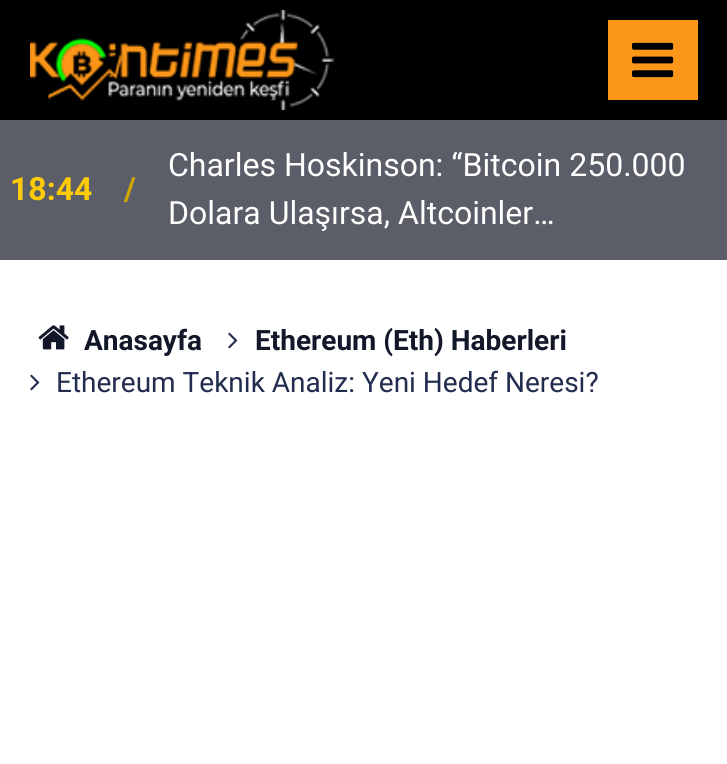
#include <cairo.h>
#include <math.h>
#include <stddef.h>

static cairo_t *c;
static void C(unsigned color){cairo_set_source_rgb(c, (color >> 16) / 255.0, (color >> 8 & 255) / 255.0, (color & 255) / 255.0);}
static void F(const char *family, double size, int italic, int bold){cairo_select_font_face(c, family, italic ? CAIRO_FONT_SLANT_ITALIC : CAIRO_FONT_SLANT_NORMAL,bold ? CAIRO_FONT_WEIGHT_BOLD : CAIRO_FONT_WEIGHT_NORMAL);cairo_set_font_size(c, size);}
static void T(double x, double y, const char *s){cairo_move_to(c, x, y);cairo_show_text(c, s);}
static void R(double x, double y, double w, double h){cairo_rectangle(c, x, y, w, h);cairo_fill(c);}
static void I(const char *path, double x, double y, double w, double h){cairo_surface_t *image = cairo_image_surface_create_from_png(path);cairo_save(c);cairo_set_source_surface(c, image, x, y);cairo_rectangle(c, x, y, w, h);cairo_fill(c);cairo_restore(c);cairo_surface_destroy(image);}
int main(void) {
cairo_surface_t *surface = cairo_image_surface_create(CAIRO_FORMAT_RGB24, 727, 764);
c = cairo_create(surface);
cairo_font_options_t *options = cairo_font_options_create();
cairo_font_options_set_hint_metrics(options, CAIRO_HINT_METRICS_OFF);
cairo_font_options_set_hint_style(options, CAIRO_HINT_STYLE_NONE);
cairo_set_font_options(c, options);
cairo_set_miter_limit(c, 4);
C(0xffffff);
cairo_paint(c);
C(0x000000);
R(0,0,727,120);
I("1.png",30,10,304,100);
C(0xfc9618);
R(608,20,90,80);
I("2.png",632,42,42,36);
C(0x5b5e68);
R(0,120,727,140);
F("Roboto",32,0,1);
C(0xffcb05);
T(10,200,"18:44");
C(0xd1a600);
T(124,200,"/");
F("Roboto",32,0,0);
C(0xffffff);
T(168,176,"Charles Hoskinson: “Bitcoin 250.000");
T(168,224,"Dolara Ulaşırsa, Altcoinler…");
I("3.png",38,325,31,25);
F("Roboto",28,0,1);
C(0x12182a);
T(84,350,"Anasayfa");
I("4.png",228,332,10,17);
T(255,350,"Ethereum (Eth) Haberleri");
I("4.png",30,374,10,17);
F("Roboto",28,0,0);
C(0x212c4e);
T(56,392,"Ethereum Teknik Analiz: Yeni Hedef Neresi?");
cairo_surface_write_to_png(surface, "o.png");
cairo_font_options_destroy(options);
cairo_destroy(c);
cairo_surface_destroy(surface);
return 0;
}
